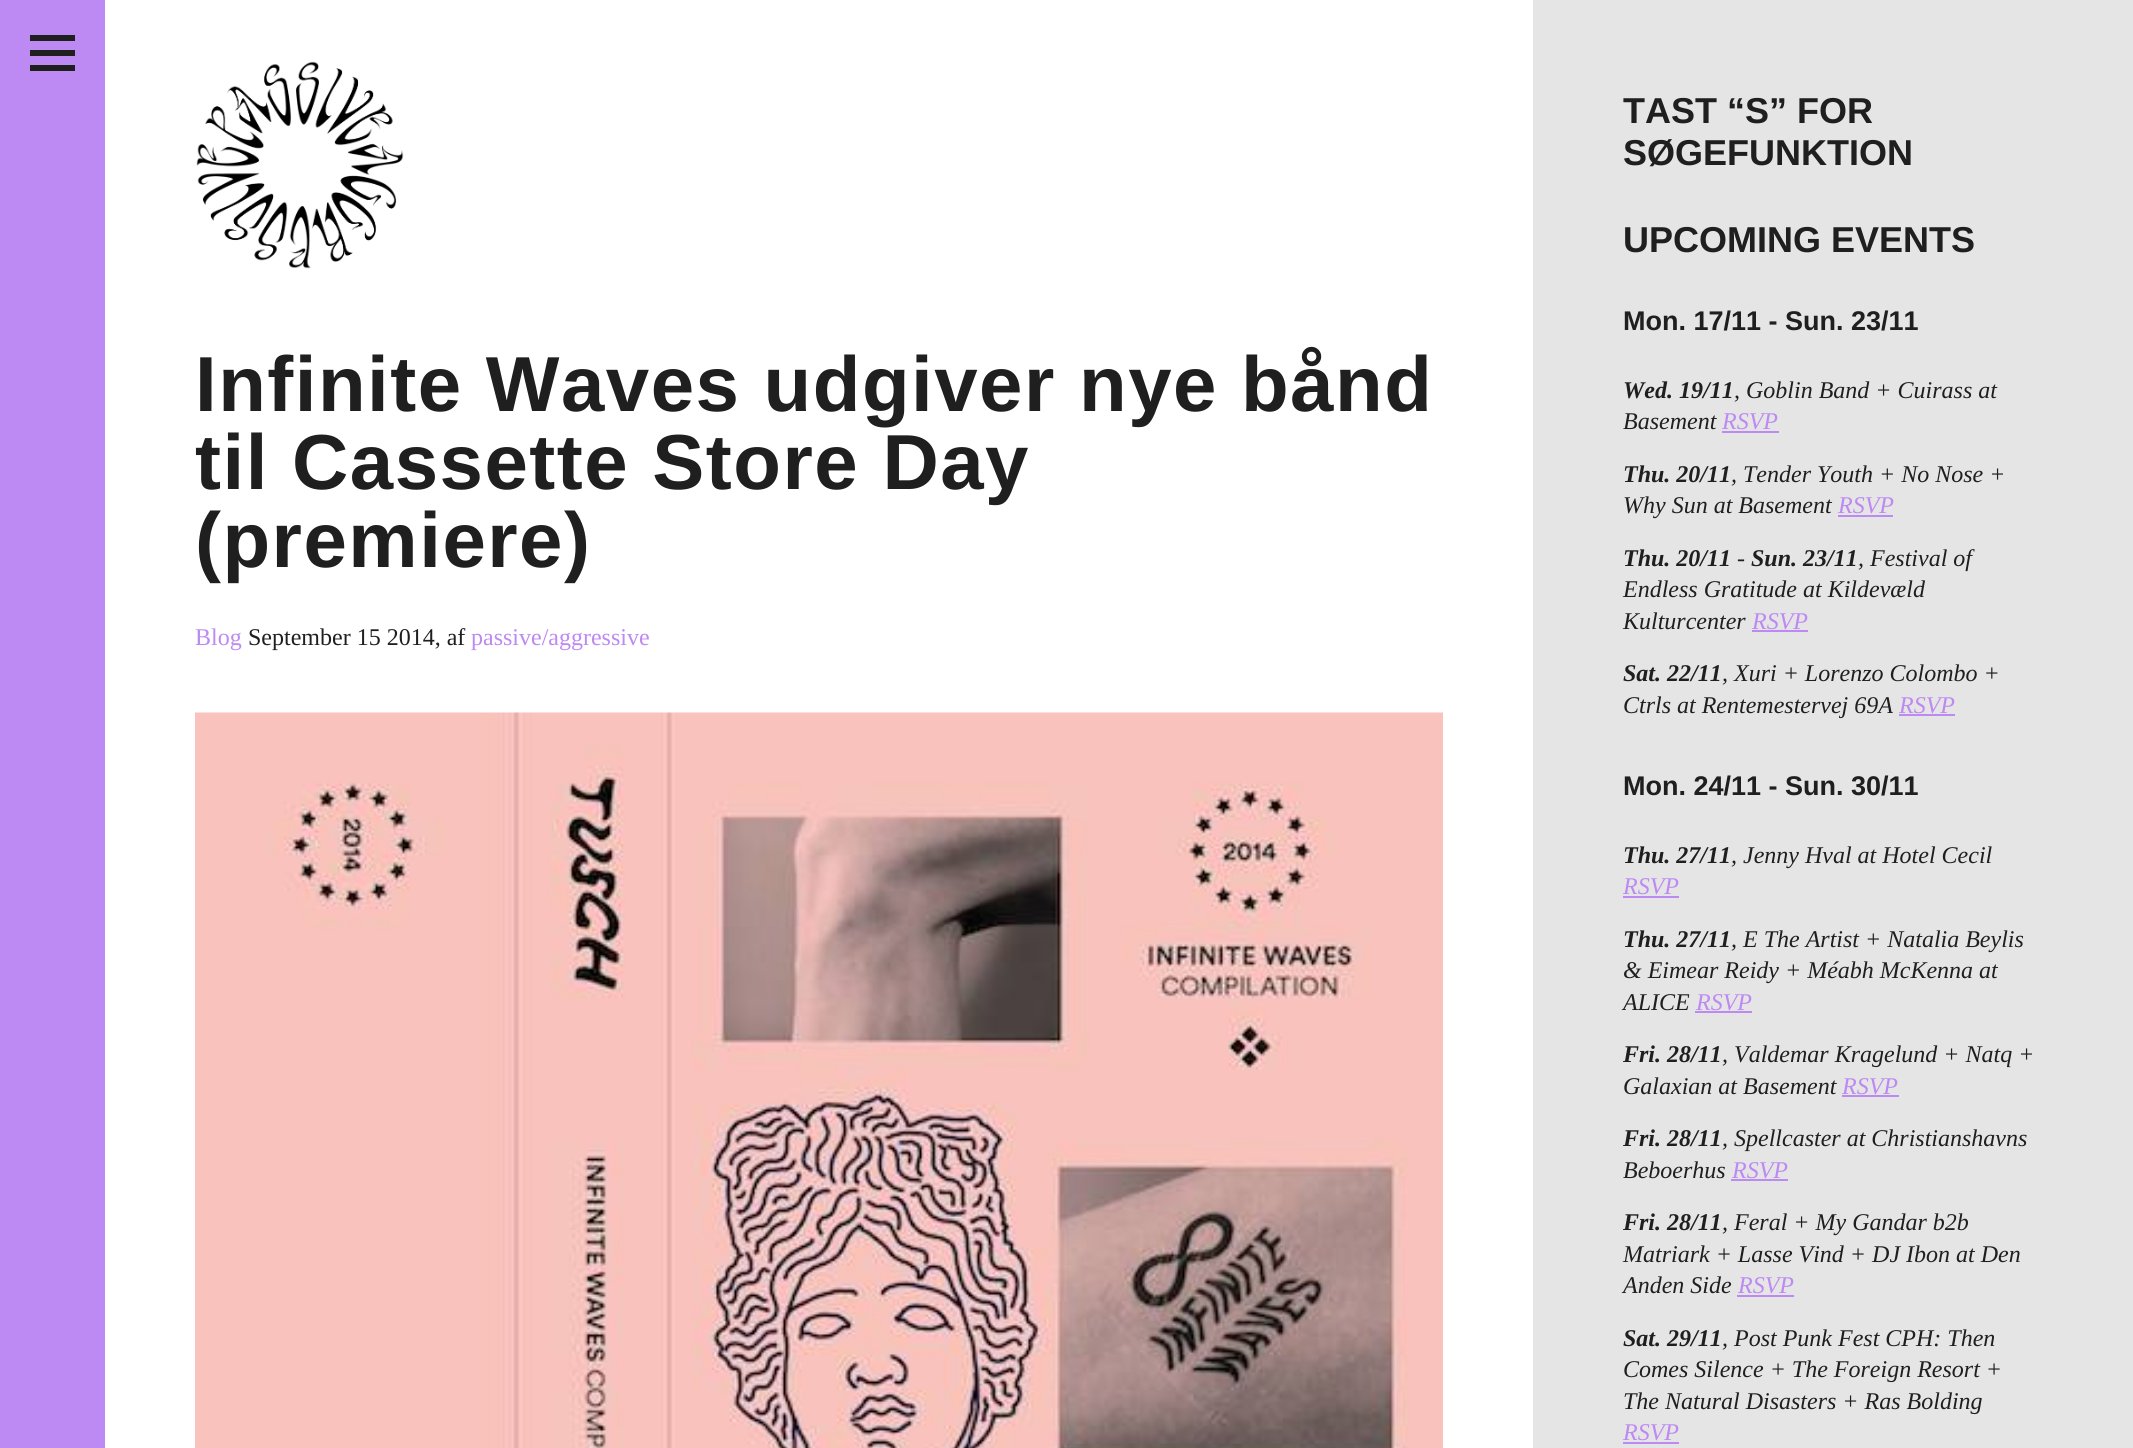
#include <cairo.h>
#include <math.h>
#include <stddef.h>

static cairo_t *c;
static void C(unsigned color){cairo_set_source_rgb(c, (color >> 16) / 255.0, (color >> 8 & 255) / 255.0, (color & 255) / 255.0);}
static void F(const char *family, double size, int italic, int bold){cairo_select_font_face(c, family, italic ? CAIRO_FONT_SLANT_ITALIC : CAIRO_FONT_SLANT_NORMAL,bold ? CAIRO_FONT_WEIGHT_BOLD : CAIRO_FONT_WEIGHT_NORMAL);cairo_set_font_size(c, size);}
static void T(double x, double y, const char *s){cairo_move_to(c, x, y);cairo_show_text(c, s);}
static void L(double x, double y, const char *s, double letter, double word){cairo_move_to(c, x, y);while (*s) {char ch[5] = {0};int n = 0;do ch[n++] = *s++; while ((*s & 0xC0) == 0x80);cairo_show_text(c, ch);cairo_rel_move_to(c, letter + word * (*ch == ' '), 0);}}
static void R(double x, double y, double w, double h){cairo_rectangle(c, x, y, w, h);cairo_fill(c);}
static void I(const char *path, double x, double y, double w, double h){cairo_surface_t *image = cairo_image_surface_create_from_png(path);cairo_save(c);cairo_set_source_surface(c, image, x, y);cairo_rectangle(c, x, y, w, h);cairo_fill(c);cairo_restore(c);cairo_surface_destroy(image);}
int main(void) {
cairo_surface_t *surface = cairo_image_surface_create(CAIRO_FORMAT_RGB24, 2133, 1448);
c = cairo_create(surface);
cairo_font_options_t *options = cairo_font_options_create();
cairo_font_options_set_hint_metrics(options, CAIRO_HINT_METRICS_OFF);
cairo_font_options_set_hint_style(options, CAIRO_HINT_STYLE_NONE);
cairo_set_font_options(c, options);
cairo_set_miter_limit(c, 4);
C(0xffffff);
cairo_paint(c);
C(0xbd89f2);
R(0,0,105,1448);
C(0x1f1f1f);
R(30,50,45,6);
R(30,35,45,6);
R(30,65,45,6);
I("1.png",196,61,208,208);
F("Liberation Sans",78,0,1);
L(195,411,"Infinite Waves udgiver nye bånd",1.5,0);
L(195,489,"til Cassette Store Day",1.5,0);
L(195,567,"(premiere)",1.5,0);
F("Liberation Serif",24,0,0);
C(0xbd89f2);
T(195,645,"Blog");
C(0x1f1f1f);
T(248,645,"September 15 2014, af");
C(0xbd89f2);
T(471,645,"passive/aggressive");
I("2.png",195,712,1248,736);
C(0xe5e5e5);
R(1533,0,600,1448);
F("Liberation Sans",36,0,1);
C(0x1f1f1f);
T(1623,123,"TAST “S” FOR");
T(1623,165,"SØGEFUNKTION");
T(1623,252,"UPCOMING EVENTS");
F("Liberation Sans",27,0,1);
T(1623,330,"Mon. 17/11 - Sun. 23/11");
F("Liberation Serif",24,1,1);
T(1623,398,"Wed. 19/11");
F("Liberation Serif",24,1,0);
T(1734,398,", Goblin Band + Cuirass at");
T(1623,429,"Basement");
C(0xbd89f2);
T(1722,429,"RSVP");
R(1722,431,57,2);
F("Liberation Serif",24,1,1);
C(0x1f1f1f);
T(1623,482,"Thu. 20/11");
F("Liberation Serif",24,1,0);
T(1731,482,", Tender Youth + No Nose +");
T(1623,513,"Why Sun at Basement");
C(0xbd89f2);
T(1838,513,"RSVP");
R(1838,515,55,2);
F("Liberation Serif",24,1,1);
C(0x1f1f1f);
T(1623,566,"Thu. 20/11");
F("Liberation Serif",24,1,0);
T(1737,566,"-");
F("Liberation Serif",24,1,1);
T(1751,566,"Sun. 23/11");
F("Liberation Serif",24,1,0);
T(1858,566,", Festival of");
T(1623,597,"Endless Gratitude at Kildevæld");
T(1623,629,"Kulturcenter");
C(0xbd89f2);
T(1752,629,"RSVP");
R(1752,630,56,2);
F("Liberation Serif",24,1,1);
C(0x1f1f1f);
T(1623,681,"Sat. 22/11");
F("Liberation Serif",24,1,0);
T(1722,681,", Xuri + Lorenzo Colombo +");
T(1623,713,"Ctrls at Rentemestervej 69A");
C(0xbd89f2);
T(1899,713,"RSVP");
R(1899,714,56,2);
F("Liberation Sans",27,0,1);
C(0x1f1f1f);
T(1623,795,"Mon. 24/11 - Sun. 30/11");
F("Liberation Serif",24,1,1);
T(1623,863,"Thu. 27/11");
F("Liberation Serif",24,1,0);
T(1731,863,", Jenny Hval at Hotel Cecil");
C(0xbd89f2);
T(1623,894,"RSVP");
R(1623,896,56,2);
F("Liberation Serif",24,1,1);
C(0x1f1f1f);
T(1623,947,"Thu. 27/11");
F("Liberation Serif",24,1,0);
T(1731,947,", E The Artist + Natalia Beylis");
T(1623,978,"& Eimear Reidy + Méabh McKenna at");
T(1623,1010,"ALICE");
C(0xbd89f2);
T(1696,1010,"RSVP");
R(1695,1011,57,2);
F("Liberation Serif",24,1,1);
C(0x1f1f1f);
T(1623,1062,"Fri. 28/11");
F("Liberation Serif",24,1,0);
T(1722,1062,", Valdemar Kragelund + Natq +");
T(1623,1094,"Galaxian at Basement");
C(0xbd89f2);
T(1842,1094,"RSVP");
R(1842,1095,57,2);
F("Liberation Serif",24,1,1);
C(0x1f1f1f);
T(1623,1146,"Fri. 28/11");
F("Liberation Serif",24,1,0);
T(1722,1146,", Spellcaster at Christianshavns");
T(1623,1178,"Beboerhus");
C(0xbd89f2);
T(1732,1178,"RSVP");
R(1731,1179,57,2);
F("Liberation Serif",24,1,1);
C(0x1f1f1f);
T(1623,1230,"Fri. 28/11");
F("Liberation Serif",24,1,0);
T(1722,1230,", Feral + My Gandar b2b");
T(1623,1262,"Matriark + Lasse Vind + DJ Ibon at Den");
T(1623,1293,"Anden Side");
C(0xbd89f2);
T(1738,1293,"RSVP");
R(1737,1295,57,2);
F("Liberation Serif",24,1,1);
C(0x1f1f1f);
T(1623,1346,"Sat. 29/11");
F("Liberation Serif",24,1,0);
T(1722,1346,", Post Punk Fest CPH: Then");
T(1623,1377,"Comes Silence + The Foreign Resort +");
T(1623,1409,"The Natural Disasters + Ras Bolding");
C(0xbd89f2);
T(1623,1440,"RSVP");
R(1623,1442,56,2);
cairo_surface_write_to_png(surface, "o.png");
cairo_font_options_destroy(options);
cairo_destroy(c);
cairo_surface_destroy(surface);
return 0;
}
